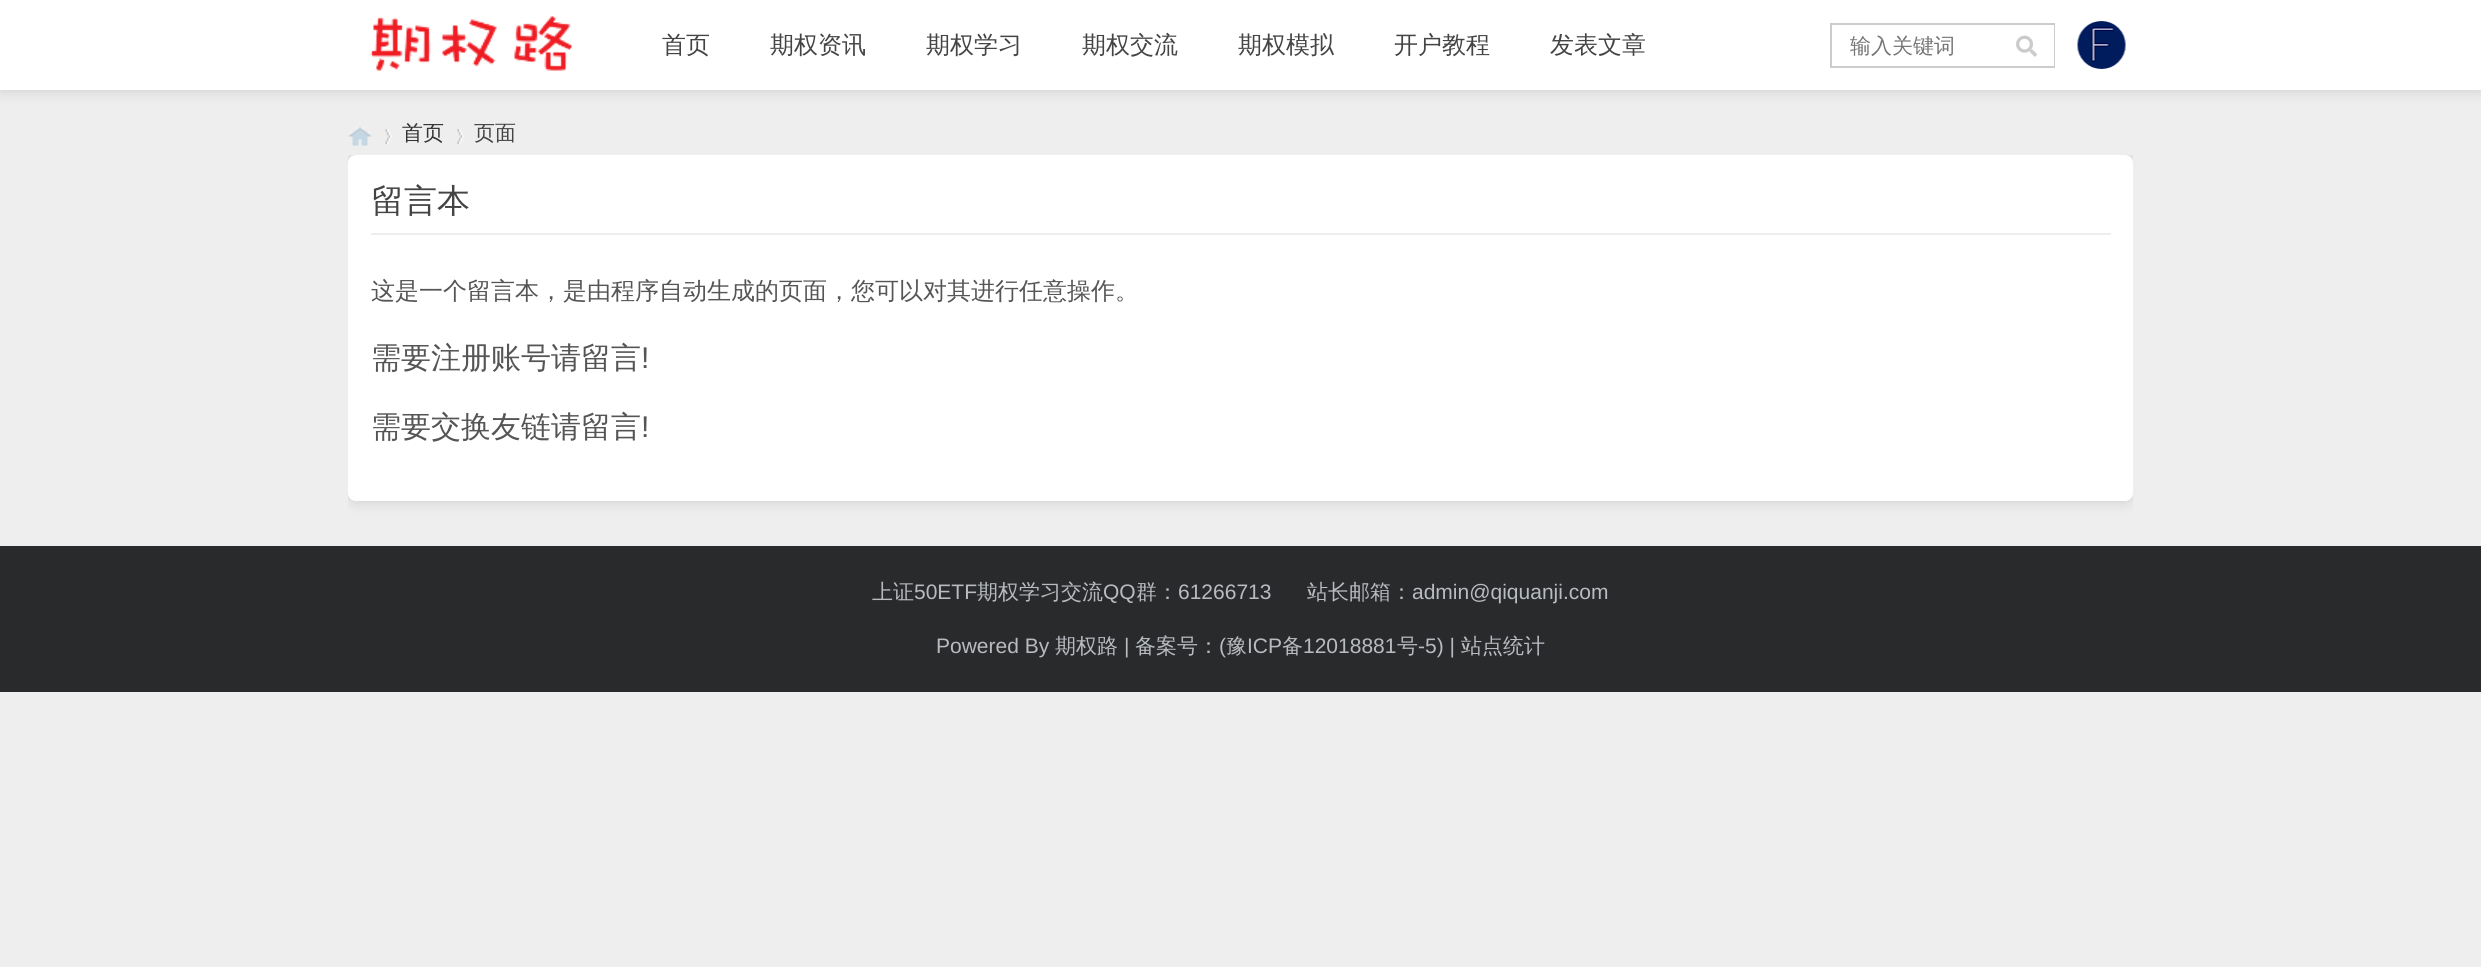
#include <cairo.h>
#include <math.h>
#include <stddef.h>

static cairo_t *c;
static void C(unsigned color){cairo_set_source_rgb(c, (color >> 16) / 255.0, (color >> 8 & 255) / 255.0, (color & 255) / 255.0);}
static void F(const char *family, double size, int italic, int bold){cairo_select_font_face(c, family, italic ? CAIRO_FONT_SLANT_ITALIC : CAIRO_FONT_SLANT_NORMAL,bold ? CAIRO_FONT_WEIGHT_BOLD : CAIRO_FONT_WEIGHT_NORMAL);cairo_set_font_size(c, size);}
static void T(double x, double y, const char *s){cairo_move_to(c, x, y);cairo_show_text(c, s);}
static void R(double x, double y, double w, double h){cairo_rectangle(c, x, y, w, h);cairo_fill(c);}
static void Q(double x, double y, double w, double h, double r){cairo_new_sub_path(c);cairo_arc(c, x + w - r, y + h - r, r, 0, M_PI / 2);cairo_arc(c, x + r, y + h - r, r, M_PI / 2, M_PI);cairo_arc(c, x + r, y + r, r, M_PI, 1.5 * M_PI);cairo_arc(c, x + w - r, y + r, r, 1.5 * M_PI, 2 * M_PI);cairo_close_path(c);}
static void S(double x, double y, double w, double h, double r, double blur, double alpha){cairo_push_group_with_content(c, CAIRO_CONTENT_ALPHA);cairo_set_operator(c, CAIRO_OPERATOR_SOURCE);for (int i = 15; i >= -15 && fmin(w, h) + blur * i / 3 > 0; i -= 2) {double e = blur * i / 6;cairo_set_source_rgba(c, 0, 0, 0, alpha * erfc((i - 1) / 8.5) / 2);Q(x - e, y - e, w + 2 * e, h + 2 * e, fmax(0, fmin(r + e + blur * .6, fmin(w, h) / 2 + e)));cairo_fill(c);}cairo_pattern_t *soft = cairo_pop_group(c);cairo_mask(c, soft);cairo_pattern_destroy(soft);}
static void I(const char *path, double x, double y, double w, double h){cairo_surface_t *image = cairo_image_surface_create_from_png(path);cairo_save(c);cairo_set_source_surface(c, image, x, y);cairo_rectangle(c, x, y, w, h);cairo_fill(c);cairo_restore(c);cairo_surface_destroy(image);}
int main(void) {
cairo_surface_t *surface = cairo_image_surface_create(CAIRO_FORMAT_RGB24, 2481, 967);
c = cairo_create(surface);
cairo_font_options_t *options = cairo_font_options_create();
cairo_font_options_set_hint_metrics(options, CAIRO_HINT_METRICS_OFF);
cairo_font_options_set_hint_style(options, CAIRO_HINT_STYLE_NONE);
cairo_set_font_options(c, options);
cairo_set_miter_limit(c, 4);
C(0xeeeeee);
cairo_paint(c);
C(0x000000);
S(0,0,2481,90,0,7.5,.15);
C(0xffffff);
R(0,0,2481,90);
I("1.png",370,16,202,55);
F("WenQuanYi Zen Hei Medium",24,0,0);
C(0x444444);
T(662,53,"首页");
T(770,53,"期权资讯");
T(926,53,"期权学习");
T(1082,53,"期权交流");
T(1238,53,"期权模拟");
T(1394,53,"开户教程");
T(1550,53,"发表文章");
C(0xcccccc);
R(1830,23,225,2);
R(1830,66,170,2);
R(1830,23,2,45);
cairo_save(c);
cairo_rectangle(c,1850,33,150,27);
cairo_clip(c);
F("WenQuanYi Zen Hei Medium",21,0,0);
C(0x757575);
T(1850,53,"输入关键词");
cairo_restore(c);
R(2054,23,1,45);
R(2000,66,55,2);
I("2.png",2016,35,21,22);
I("3.png",2077,21,49,48);
I("4.png",348,127,24,19);
I("5.png",385,129,7,15);
F("WenQuanYi Zen Hei Medium",21,0,0);
C(0x333333);
T(402,140,"首页");
I("6.png",457,129,7,15);
C(0x444444);
T(474,140,"页面");
cairo_save(c);
cairo_rectangle(c,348,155,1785,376);
cairo_clip(c);
C(0x000000);
S(348,155,1785,346,8,7.5,.15);
cairo_restore(c);
C(0xffffff);
Q(348,155,1785,346,8);
cairo_fill(c);
C(0xeeeeee);
R(371,233,1740,2);
F("WenQuanYi Zen Hei Medium",33,0,0);
C(0x444444);
T(371,212,"留言本");
F("WenQuanYi Zen Hei Medium",24,0,0);
C(0x555555);
T(371,299,"这是一个留言本，是由程序自动生成的页面，您可以对其进行任意操作。");
F("WenQuanYi Zen Hei Medium",30,0,0);
T(371,368,"需要注册账号请留言");
F("Liberation Sans",30,0,0);
T(641,368,"!");
F("WenQuanYi Zen Hei Medium",30,0,0);
T(371,437,"需要交换友链请留言");
F("Liberation Sans",30,0,0);
T(641,437,"!");
C(0x292a2c);
R(0,546,2481,146);
F("WenQuanYi Zen Hei Medium",21,0,0);
C(0xb8bbc0);
T(872,599,"上证");
F("Liberation Sans",21,0,0);
T(914,599,"50ETF");
F("WenQuanYi Zen Hei Medium",21,0,0);
T(977,599,"期权学习交流");
F("Liberation Sans",21,0,0);
T(1103,599,"QQ");
F("WenQuanYi Zen Hei Medium",21,0,0);
T(1136,599,"群：");
F("Liberation Sans",21,0,0);
T(1178,599,"61266713");
F("WenQuanYi Zen Hei Medium",21,0,0);
T(1307,599,"站长邮箱：");
F("Liberation Sans",21,0,0);
T(1412,599,"admin@qiquanji.com");
T(936,653,"Powered By");
F("WenQuanYi Zen Hei Medium",21,0,0);
T(1055,653,"期权路");
F("Liberation Sans",21,0,0);
T(1124,653,"|");
F("WenQuanYi Zen Hei Medium",21,0,0);
T(1135,653,"备案号：");
F("Liberation Sans",21,0,0);
T(1219,653,"(");
F("WenQuanYi Zen Hei Medium",21,0,0);
T(1226,653,"豫");
F("Liberation Sans",21,0,0);
T(1247,653,"ICP");
F("WenQuanYi Zen Hei Medium",21,0,0);
T(1282,653,"备");
F("Liberation Sans",21,0,0);
T(1303,653,"12018881");
F("WenQuanYi Zen Hei Medium",21,0,0);
T(1397,653,"号");
F("Liberation Sans",21,0,0);
T(1418,653,"-5) |");
F("WenQuanYi Zen Hei Medium",21,0,0);
T(1461,653,"站点统计");
cairo_surface_write_to_png(surface, "o.png");
cairo_font_options_destroy(options);
cairo_destroy(c);
cairo_surface_destroy(surface);
return 0;
}
